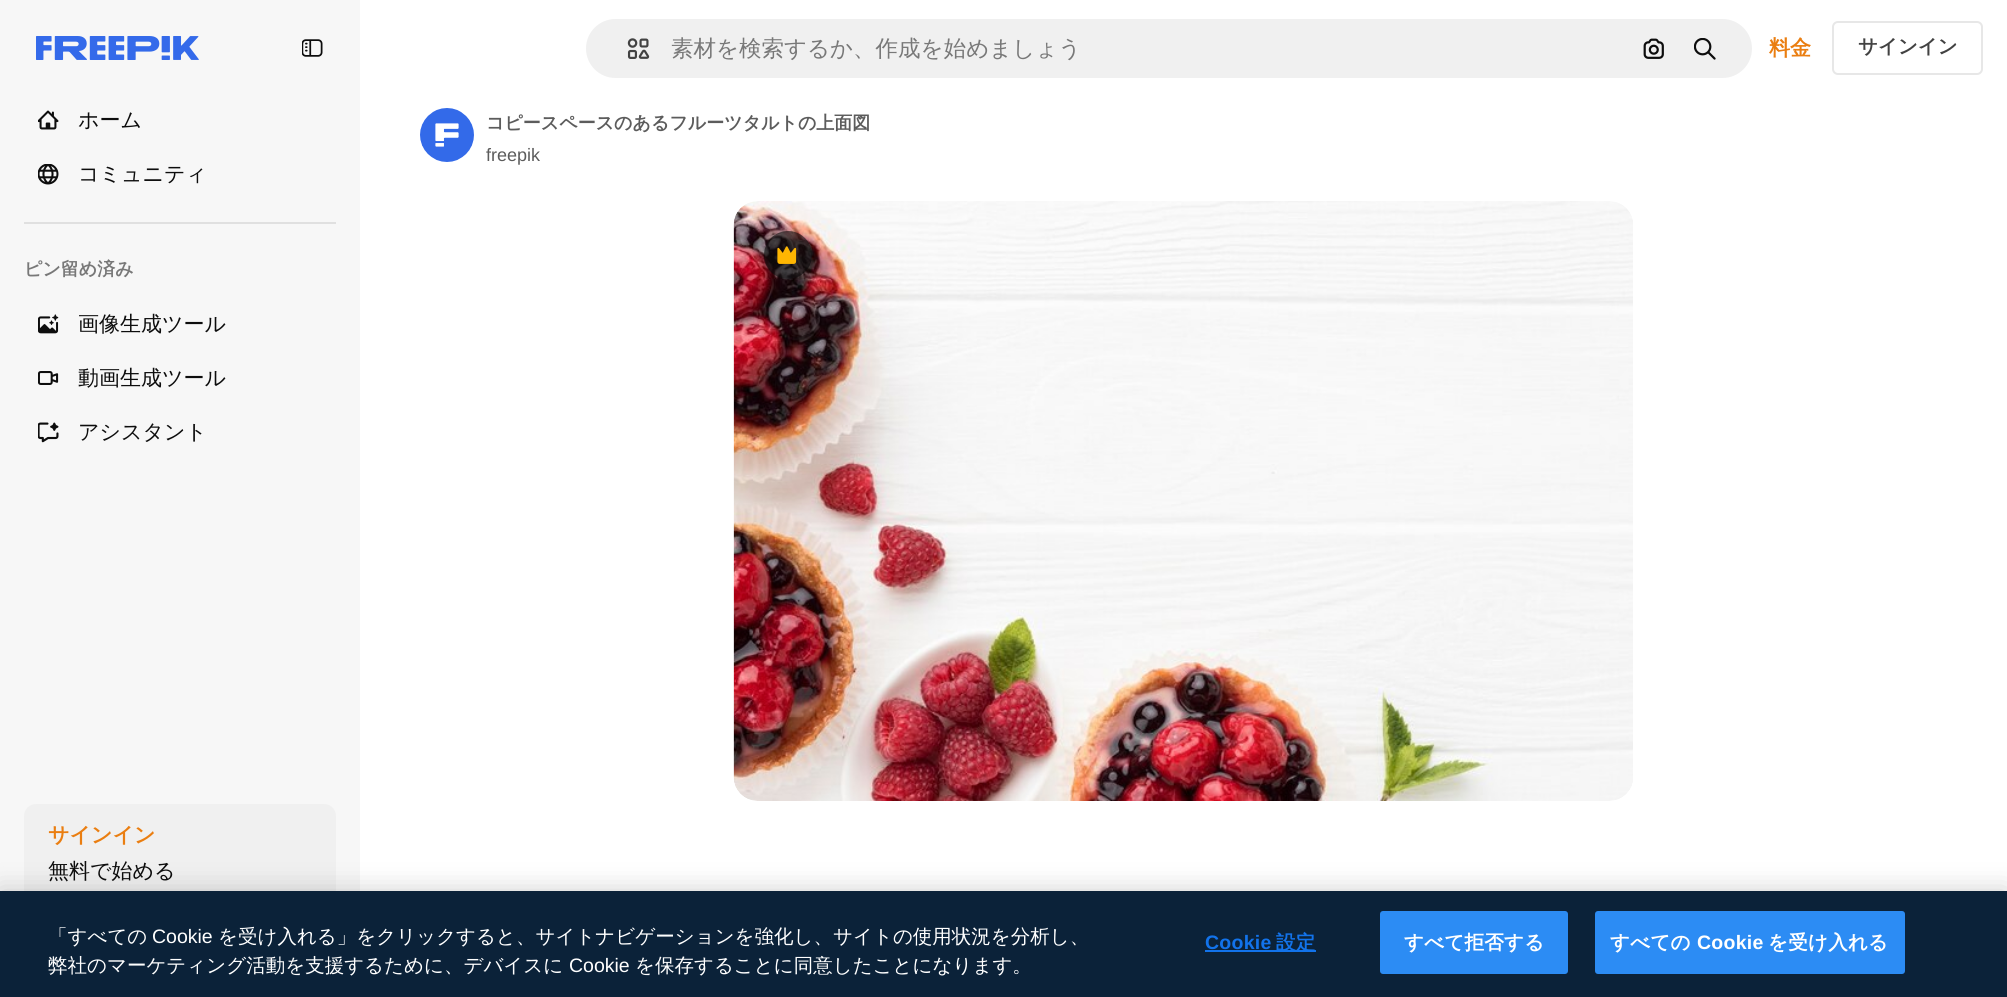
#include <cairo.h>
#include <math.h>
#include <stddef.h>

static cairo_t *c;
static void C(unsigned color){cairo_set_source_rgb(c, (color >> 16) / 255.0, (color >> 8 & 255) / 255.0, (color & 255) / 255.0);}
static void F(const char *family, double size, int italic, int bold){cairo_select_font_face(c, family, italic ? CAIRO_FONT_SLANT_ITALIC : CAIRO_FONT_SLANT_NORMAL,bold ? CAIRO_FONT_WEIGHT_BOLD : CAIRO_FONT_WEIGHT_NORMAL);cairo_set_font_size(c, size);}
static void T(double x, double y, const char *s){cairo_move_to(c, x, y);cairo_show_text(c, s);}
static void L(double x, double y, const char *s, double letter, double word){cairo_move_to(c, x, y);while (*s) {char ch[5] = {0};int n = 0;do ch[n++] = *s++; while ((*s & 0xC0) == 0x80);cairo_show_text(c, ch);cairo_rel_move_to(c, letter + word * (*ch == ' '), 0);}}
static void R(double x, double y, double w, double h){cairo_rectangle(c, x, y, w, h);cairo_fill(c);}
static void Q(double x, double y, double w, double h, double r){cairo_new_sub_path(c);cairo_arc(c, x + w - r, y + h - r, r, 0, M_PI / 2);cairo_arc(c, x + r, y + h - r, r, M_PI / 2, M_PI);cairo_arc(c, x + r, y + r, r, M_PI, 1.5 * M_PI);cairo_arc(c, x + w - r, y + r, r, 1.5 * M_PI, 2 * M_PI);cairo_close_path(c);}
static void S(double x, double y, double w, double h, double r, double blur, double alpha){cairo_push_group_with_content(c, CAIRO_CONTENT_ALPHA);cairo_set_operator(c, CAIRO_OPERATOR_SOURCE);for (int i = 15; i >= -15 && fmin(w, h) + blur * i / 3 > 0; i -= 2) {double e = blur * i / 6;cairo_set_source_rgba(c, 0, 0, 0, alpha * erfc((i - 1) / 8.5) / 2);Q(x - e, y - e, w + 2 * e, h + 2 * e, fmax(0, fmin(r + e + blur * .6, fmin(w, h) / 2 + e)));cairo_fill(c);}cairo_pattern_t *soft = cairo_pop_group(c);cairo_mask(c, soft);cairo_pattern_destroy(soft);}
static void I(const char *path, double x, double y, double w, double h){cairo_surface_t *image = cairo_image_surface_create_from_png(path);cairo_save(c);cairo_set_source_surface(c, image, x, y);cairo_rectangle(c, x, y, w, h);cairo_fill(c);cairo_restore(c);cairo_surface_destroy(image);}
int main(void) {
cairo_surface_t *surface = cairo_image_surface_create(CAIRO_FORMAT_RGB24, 2007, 997);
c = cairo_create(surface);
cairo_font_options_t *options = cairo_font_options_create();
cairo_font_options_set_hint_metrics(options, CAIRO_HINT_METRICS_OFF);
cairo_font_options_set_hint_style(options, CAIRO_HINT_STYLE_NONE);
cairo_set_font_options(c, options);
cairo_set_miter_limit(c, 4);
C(0xffffff);
cairo_paint(c);
C(0xf7f7f7);
R(0,0,360,891);
I("1.png",36,36,163,24);
I("2.png",302,39,21,18);
I("3.png",38,110,21,20);
F("WenQuanYi Zen Hei Medium",21,0,0);
C(0x0d0d0d);
T(78,127,"ホーム");
I("4.png",38,164,21,21);
T(78,181,"コミュニティ");
C(0xe0e0e0);
R(24,222,312,2);
F("WenQuanYi Zen Hei",18,0,1);
C(0x787878);
T(24,275,"ピン留め済み");
I("5.png",38,314,21,20);
F("WenQuanYi Zen Hei Medium",21,0,0);
C(0x0d0d0d);
T(78,331,"画像生成ツール");
I("6.png",38,371,21,14);
T(78,385,"動画生成ツール");
I("7.png",38,422,21,21);
T(78,439,"アシスタント");
C(0xf0f0f0);
Q(24,804,312,98,12);
cairo_fill(c);
F("WenQuanYi Zen Hei",21,0,1);
C(0xea7e11);
T(48,842,"サインイン");
F("WenQuanYi Zen Hei Medium",21,0,0);
C(0x0d0d0d);
T(48,878,"無料で始める");
C(0xf0f0f0);
Q(585,18,1168,61,30.5);
cairo_fill_preserve(c);
C(0xffffff);
cairo_stroke(c);
I("8.png",627,38,23,21);
F("WenQuanYi Zen Hei Medium",22.5,0,0);
C(0x787878);
T(671,56,"素材を検索するか、作成を始めましょう");
I("9.png",1643,38,21,21);
I("10.png",1694,38,22,22);
F("WenQuanYi Zen Hei",21,0,1);
C(0xea7e11);
T(1769,55,"料金");
Q(1833,22,149,52,5);
C(0xe7e7e7);
cairo_stroke(c);
F("WenQuanYi Zen Hei",19.5,0,1);
C(0x424242);
T(1858,53,"サインイン");
I("11.png",420,108,54,54);
F("WenQuanYi Zen Hei",18,0,1);
C(0x5c5c5c);
T(486,129,"コピースペースのあるフルーツタルトの上面図");
F("Liberation Sans",18,0,0);
T(486,161,"freepik");
I("12.png",733,201,900,600);
cairo_set_source_rgba(c,0.051,0.051,0.051,0.6);
cairo_arc(c,788,255,24,0,2 * M_PI);
cairo_fill(c);
I("13.png",777,246,20,18);
C(0x000000);
S(0,891,2007,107,0,13.5,.2);
C(0x0b2239);
R(0,891,2007,106);
F("WenQuanYi Zen Hei Medium",19.5,0,0);
C(0xffffff);
T(48,943,"「すべての");
F("Liberation Sans",19.5,0,0);
T(152,943,"Cookie");
F("WenQuanYi Zen Hei Medium",19.5,0,0);
T(218,943,"を受け入れる」をクリックすると、サイトナビゲーションを強化し、サイトの使用状況を分析し、");
T(48,972,"弊社のマーケティング活動を支援するために、デバイスに");
F("Liberation Sans",19.5,0,0);
T(569,972,"Cookie");
F("WenQuanYi Zen Hei Medium",19.5,0,0);
T(635,972,"を保存することに同意したことになります。");
F("Liberation Sans",19.5,0,1);
C(0x1273eb);
L(1205,949,"Cookie",.25,0);
R(1205,950,111,2);
F("WenQuanYi Zen Hei",19.5,0,1);
L(1276,949,"設定",.25,0);
C(0x2c8cf4);
Q(1381,912,186,61,2);
cairo_fill_preserve(c);
cairo_stroke(c);
C(0xffffff);
L(1404,949,"すべて拒否する",.25,0);
C(0x2c8cf4);
Q(1596,912,308,61,2);
cairo_fill_preserve(c);
cairo_stroke(c);
C(0xffffff);
L(1610,949,"すべての",.25,0);
F("Liberation Sans",19.5,0,1);
L(1697,949,"Cookie",.25,0);
F("WenQuanYi Zen Hei",19.5,0,1);
L(1768,949,"を受け入れる",.25,0);
cairo_surface_write_to_png(surface, "o.png");
cairo_font_options_destroy(options);
cairo_destroy(c);
cairo_surface_destroy(surface);
return 0;
}
